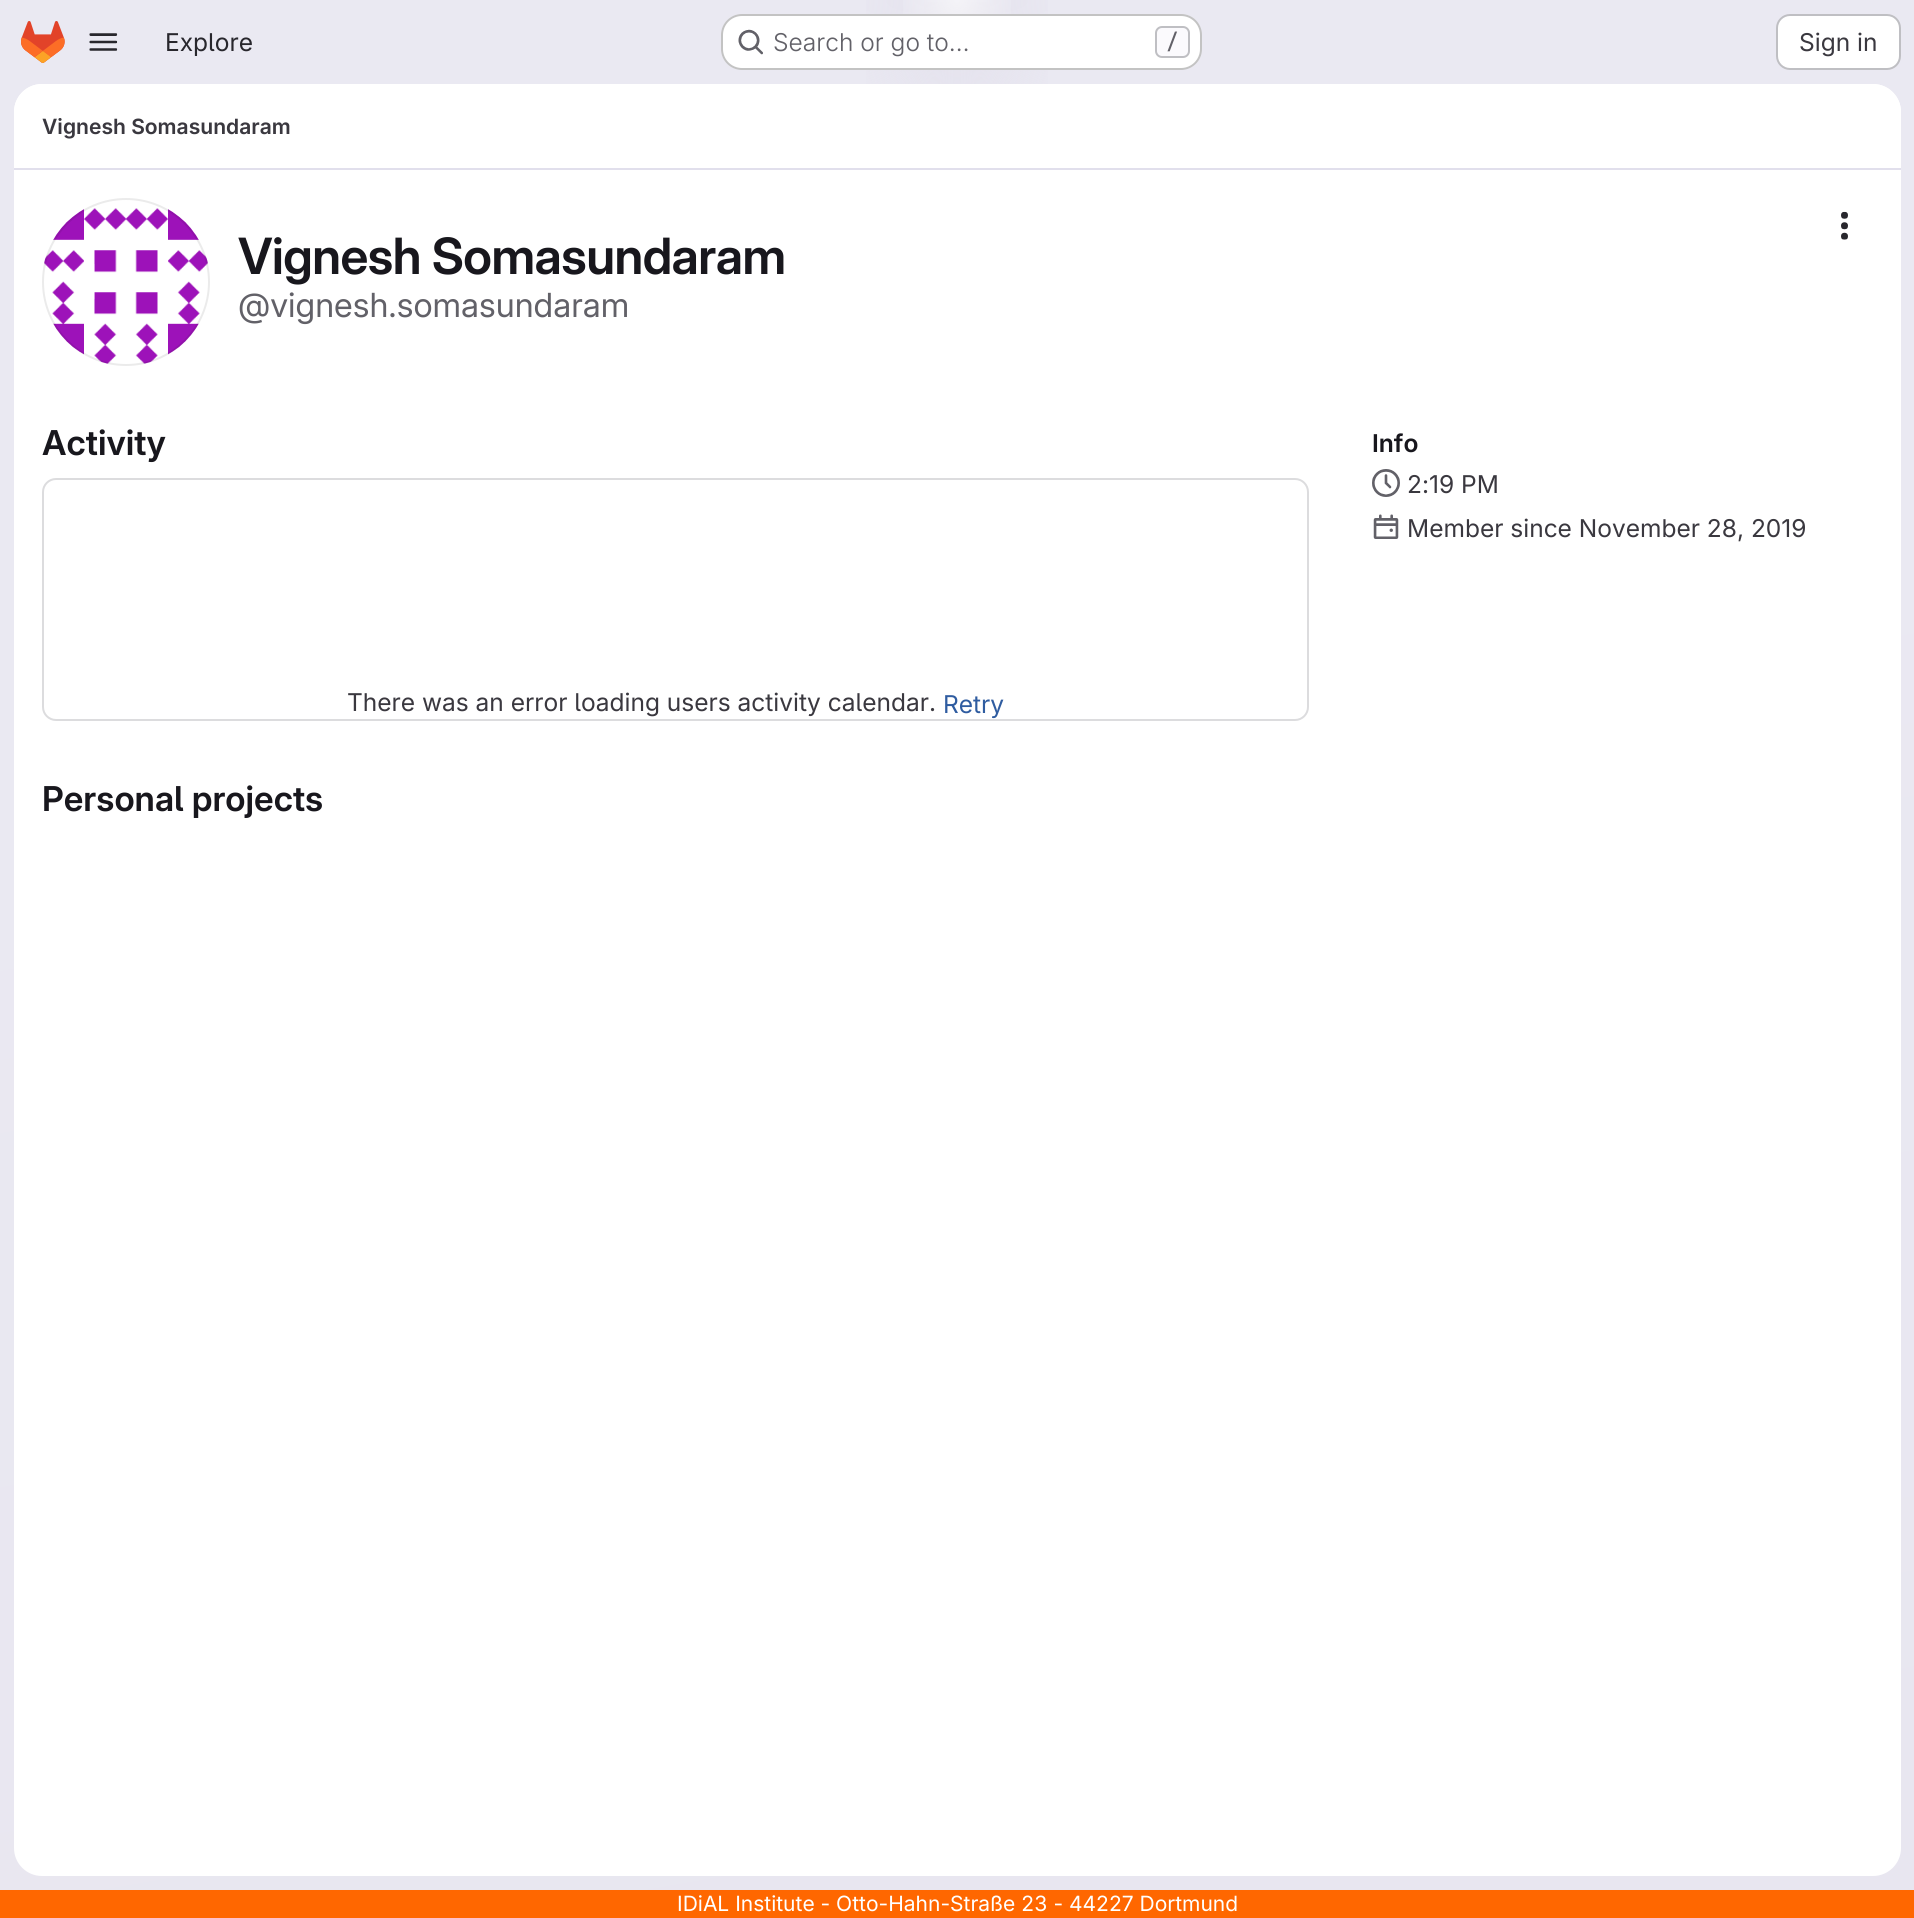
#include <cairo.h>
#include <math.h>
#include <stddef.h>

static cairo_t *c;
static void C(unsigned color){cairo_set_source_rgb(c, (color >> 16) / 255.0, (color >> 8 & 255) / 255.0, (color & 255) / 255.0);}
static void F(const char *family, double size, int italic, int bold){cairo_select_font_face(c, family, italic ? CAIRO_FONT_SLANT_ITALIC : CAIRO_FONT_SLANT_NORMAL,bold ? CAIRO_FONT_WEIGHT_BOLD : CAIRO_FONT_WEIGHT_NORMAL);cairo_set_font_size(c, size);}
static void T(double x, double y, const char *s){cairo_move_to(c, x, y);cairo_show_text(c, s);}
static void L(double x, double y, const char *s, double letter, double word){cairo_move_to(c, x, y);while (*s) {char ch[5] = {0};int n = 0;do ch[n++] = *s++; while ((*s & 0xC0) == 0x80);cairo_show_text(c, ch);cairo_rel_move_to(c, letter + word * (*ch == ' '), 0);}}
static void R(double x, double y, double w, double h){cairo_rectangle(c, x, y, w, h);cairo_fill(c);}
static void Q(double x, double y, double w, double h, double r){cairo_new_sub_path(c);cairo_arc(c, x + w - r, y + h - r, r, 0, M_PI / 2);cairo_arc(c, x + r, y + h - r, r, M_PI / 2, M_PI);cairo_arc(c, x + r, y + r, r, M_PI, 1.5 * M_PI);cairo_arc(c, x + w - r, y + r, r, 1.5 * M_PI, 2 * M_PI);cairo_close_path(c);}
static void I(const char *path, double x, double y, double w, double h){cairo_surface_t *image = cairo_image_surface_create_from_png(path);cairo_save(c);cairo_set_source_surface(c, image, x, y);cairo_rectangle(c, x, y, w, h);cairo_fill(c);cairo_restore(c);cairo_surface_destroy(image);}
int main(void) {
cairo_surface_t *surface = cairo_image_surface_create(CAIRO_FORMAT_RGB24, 1914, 1918);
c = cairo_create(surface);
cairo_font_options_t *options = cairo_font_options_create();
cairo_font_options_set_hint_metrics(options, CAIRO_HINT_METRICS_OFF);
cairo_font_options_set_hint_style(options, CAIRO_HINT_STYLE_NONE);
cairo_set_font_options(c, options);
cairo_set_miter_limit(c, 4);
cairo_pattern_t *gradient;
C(0xffffff);
cairo_paint(c);
gradient = cairo_pattern_create_linear(1150,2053,764,-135);
cairo_pattern_add_color_stop_rgba(gradient,0,0.91,0.902,0.941,1);
cairo_pattern_add_color_stop_rgba(gradient,.7,0.918,0.914,0.949,1);
cairo_set_source(c,gradient);
cairo_pattern_destroy(gradient);
R(0,0,1914,1890);
gradient = cairo_pattern_create_radial(0,0,0,0,0,1);
cairo_pattern_set_matrix(gradient, &(cairo_matrix_t){1.0 / 957, 0, 0, 1.0 / 1918, -1.0 * 957 / 957, -1.0 * 0 / 1918});
cairo_pattern_add_color_stop_rgba(gradient,0,0.894,0.886,0.929,1);
cairo_pattern_add_color_stop_rgba(gradient,.13,0.894,0.886,0.929,0);
cairo_set_source(c,gradient);
cairo_pattern_destroy(gradient);
R(866,0,182,84);
gradient = cairo_pattern_create_radial(0,0,0,0,0,1);
cairo_pattern_set_matrix(gradient, &(cairo_matrix_t){1.0 / 957, 0, 0, 1.0 / 1918, -1.0 * 957 / 957, -1.0 * 0 / 1918});
cairo_pattern_add_color_stop_rgba(gradient,0,0.894,0.886,0.925,1);
cairo_pattern_add_color_stop_rgba(gradient,.09,0.894,0.886,0.925,0);
cairo_set_source(c,gradient);
cairo_pattern_destroy(gradient);
R(924,2,66,68);
gradient = cairo_pattern_create_radial(957,0,0,957,0,2144);
cairo_pattern_add_color_stop_rgba(gradient,0,1,1,1,.6);
cairo_pattern_add_color_stop_rgba(gradient,.03,1,1,1,0);
cairo_set_source(c,gradient);
cairo_pattern_destroy(gradient);
R(903,0,108,55);
I("1.png",21,21,44,42);
I("2.png",89,33,29,18);
F("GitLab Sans",24.5,0,0);
C(0x28272d);
T(165,51,"Explore");
C(0xffffff);
Q(721,14,481,56,21);
cairo_fill(c);
Q(722,15,479,54,20);
cairo_set_source_rgba(c,0.02,0.02,0.024,0.24);
cairo_stroke(c);
I("3.png",738,29,25,26);
F("GitLab Sans Light",24.5,0,0);
C(0x626168);
T(773,51,"Search or go to…");
C(0xfbfafd);
Q(1156,27,33,30,6);
cairo_fill_preserve(c);
C(0xbfbfc3);
cairo_stroke(c);
F("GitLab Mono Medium",21,0,0);
C(0x626168);
T(1166,49,"/");
C(0xffffff);
Q(1777,15,123,54,13);
cairo_fill_preserve(c);
C(0xbfbfc3);
cairo_stroke(c);
F("GitLab Sans",24.5,0,0);
C(0x3a383f);
T(1799,51,"Sign in");
C(0xffffff);
Q(14,84,1887,1792,28);
cairo_fill(c);
cairo_new_path(c);
cairo_move_to(c,42,84);
cairo_line_to(c,1873,84);
cairo_curve_to(c,1888.5,84,1901,96.5,1901,112);
cairo_line_to(c,1901,170);
cairo_line_to(c,14,170);
cairo_line_to(c,14,112);
cairo_curve_to(c,14,96.5,26.5,84,42,84);
cairo_close_path(c);
cairo_fill(c);
C(0xe1dfec);
R(14,168,1887,2);
F("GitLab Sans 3 SemiBold",21,0,0);
C(0x3a383f);
T(42,134,"Vignesh Somasundaram");
I("4.png",1841,211,7,29);
I("5.png",44,208,164,156);
cairo_arc(c,126,282,83,0,2 * M_PI);
cairo_set_source_rgba(c,0.02,0.02,0.024,0.08);
cairo_stroke(c);
F("GitLab Sans SemiBold",50,0,0);
C(0x18171d);
L(238,274,"Vignesh Somasundaram",-.5,0);
F("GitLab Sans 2",33.25,0,0);
C(0x626168);
T(238,317,"@vignesh.somasundaram");
F("GitLab Sans 2 SemiBold",34.25,0,0);
C(0x18171d);
T(42,455,"Activity");
Q(43,479,1265,241,13);
C(0xdcdcde);
cairo_stroke(c);
F("GitLab Sans",24.5,0,0);
C(0x3a383f);
T(347,711,"There was an error loading users activity calendar.");
C(0x2f5ca0);
T(943,713,"Retry");
F("GitLab Sans 2 SemiBold",34.25,0,0);
C(0x18171d);
T(42,811,"Personal projects");
F("GitLab Sans 3 SemiBold",24.5,0,0);
T(1372,452,"Info");
I("6.png",1372,469,28,28);
F("GitLab Sans",24.5,0,0);
C(0x3a383f);
T(1407,493,"2:19 PM");
I("7.png",1373,514,26,25);
T(1407,537,"Member since November 28, 2019");
C(0xff6700);
R(0,1890,1914,28);
F("GitLab Sans",21,0,0);
C(0xffffff);
T(677,1911,"IDiAL Institute - Otto-Hahn-Straße 23 - 44227 Dortmund");
cairo_surface_write_to_png(surface, "o.png");
cairo_font_options_destroy(options);
cairo_destroy(c);
cairo_surface_destroy(surface);
return 0;
}
